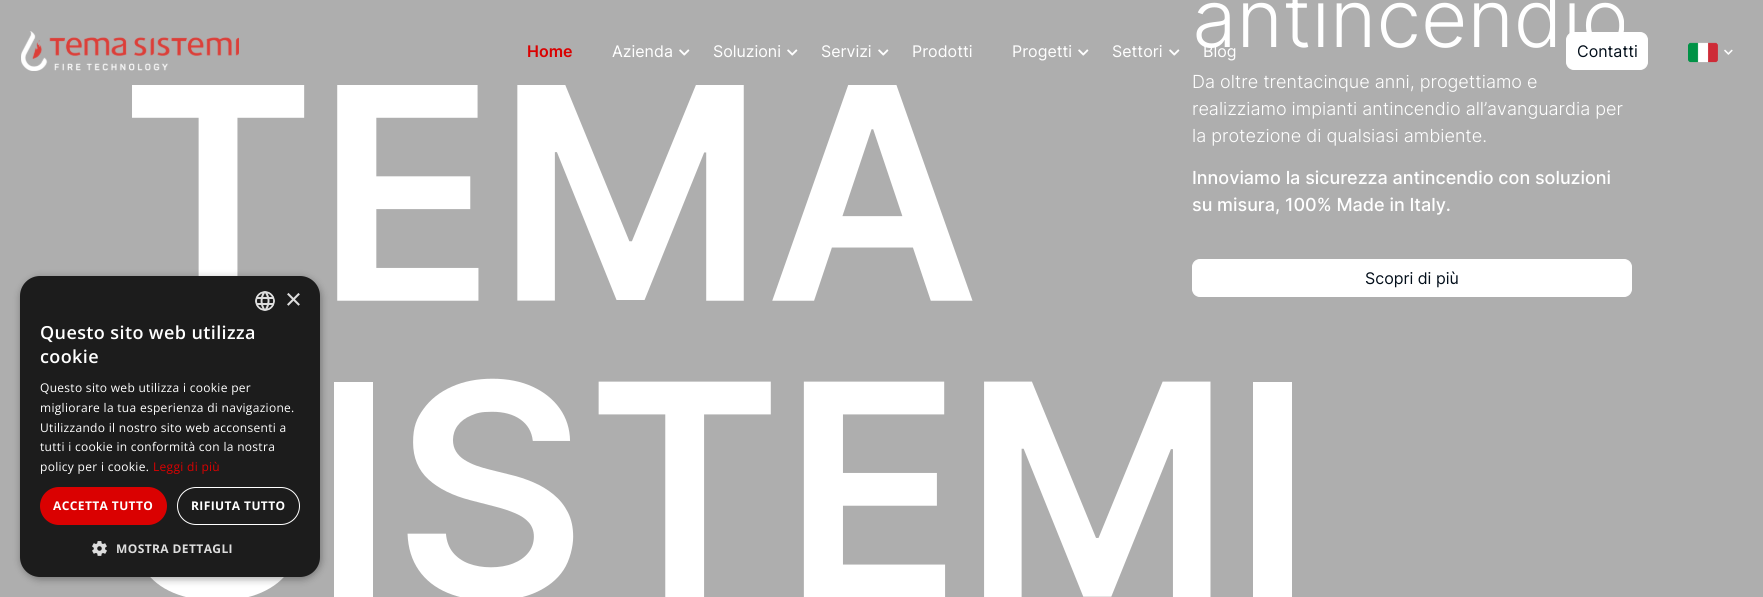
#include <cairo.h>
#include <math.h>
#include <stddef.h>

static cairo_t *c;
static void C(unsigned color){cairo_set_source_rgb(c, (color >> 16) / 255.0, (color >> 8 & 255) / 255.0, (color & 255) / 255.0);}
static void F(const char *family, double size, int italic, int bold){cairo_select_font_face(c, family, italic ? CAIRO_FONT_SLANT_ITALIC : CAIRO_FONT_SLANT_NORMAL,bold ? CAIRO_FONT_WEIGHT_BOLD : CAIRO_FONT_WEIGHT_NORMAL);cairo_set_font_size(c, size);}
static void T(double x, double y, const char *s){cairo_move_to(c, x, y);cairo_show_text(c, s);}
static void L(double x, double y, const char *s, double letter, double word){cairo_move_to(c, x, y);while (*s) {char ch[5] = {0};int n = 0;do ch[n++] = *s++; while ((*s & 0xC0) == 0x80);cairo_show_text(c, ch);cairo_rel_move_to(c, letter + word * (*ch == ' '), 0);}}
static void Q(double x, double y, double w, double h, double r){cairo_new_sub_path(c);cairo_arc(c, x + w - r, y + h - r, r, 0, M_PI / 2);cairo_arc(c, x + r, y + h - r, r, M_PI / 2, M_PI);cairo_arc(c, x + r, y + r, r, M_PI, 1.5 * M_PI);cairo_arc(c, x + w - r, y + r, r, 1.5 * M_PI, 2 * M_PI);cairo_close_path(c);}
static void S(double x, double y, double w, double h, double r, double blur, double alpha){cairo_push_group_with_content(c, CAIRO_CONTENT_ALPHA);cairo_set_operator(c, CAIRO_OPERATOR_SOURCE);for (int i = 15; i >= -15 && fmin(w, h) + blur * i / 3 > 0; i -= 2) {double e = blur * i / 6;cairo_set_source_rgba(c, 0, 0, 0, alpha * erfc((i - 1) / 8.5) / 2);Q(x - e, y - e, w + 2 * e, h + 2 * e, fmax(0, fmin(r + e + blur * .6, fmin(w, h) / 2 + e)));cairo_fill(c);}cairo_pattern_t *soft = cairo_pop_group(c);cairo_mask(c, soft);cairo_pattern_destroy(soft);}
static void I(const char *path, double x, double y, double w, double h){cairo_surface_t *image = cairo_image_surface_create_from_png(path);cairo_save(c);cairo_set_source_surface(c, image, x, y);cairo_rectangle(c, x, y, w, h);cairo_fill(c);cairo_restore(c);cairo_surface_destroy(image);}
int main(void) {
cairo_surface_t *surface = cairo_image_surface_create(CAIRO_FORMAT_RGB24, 1763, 597);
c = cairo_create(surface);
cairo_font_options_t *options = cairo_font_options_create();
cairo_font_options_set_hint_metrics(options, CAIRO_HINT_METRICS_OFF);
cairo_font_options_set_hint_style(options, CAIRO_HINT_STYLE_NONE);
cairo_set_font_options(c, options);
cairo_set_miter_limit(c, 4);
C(0xaeaeae);
cairo_paint(c);
I("1.png",132,85,1160,512);
F("Inter Light",80,0,0);
C(0xffffff);
T(1192,47,"antincendio");
F("Inter Light",18,0,0);
T(1192,88,"Da oltre trentacinque anni, progettiamo e");
T(1192,115,"realizziamo impianti antincendio all’avanguardia per");
T(1192,142,"la protezione di qualsiasi ambiente.");
F("Inter Medium",18,0,0);
T(1192,184,"Innoviamo la sicurezza antincendio con soluzioni");
T(1192,211,"su misura, 100% Made in Italy.");
Q(1192.5,259.5,439,37,7.5);
cairo_fill_preserve(c);
cairo_set_line_width(c,1);
cairo_stroke(c);
F("Inter",16,0,0);
C(0x020e1a);
T(1365,284,"Scopri di più");
I("2.png",21,31,218,40);
F("Inter SemiBold",16,0,0);
C(0xda0101);
T(527,57,"Home");
F("Inter",16,0,0);
C(0xffffff);
T(612,57,"Azienda");
I("3.png",679,49,11,7);
T(713,57,"Soluzioni");
I("3.png",787,49,11,7);
T(821,57,"Servizi");
I("3.png",878,49,11,7);
T(912,57,"Prodotti");
T(1012,57,"Progetti");
I("3.png",1078,49,11,7);
T(1112,57,"Settori");
I("3.png",1169,49,11,7);
T(1203,57,"Blog");
Q(1566.5,32.5,81,37,7.5);
cairo_fill_preserve(c);
cairo_stroke(c);
C(0x020e1a);
T(1577,57,"Contatti");
I("4.png",1688,42,30,21);
I("5.png",1724,49,9,6);
C(0x000000);
S(21,278,300,301,20,4,.35);
C(0x1c1c1c);
Q(20,276,300,301,20);
cairo_fill(c);
I("6.png",255,291,20,20);
F("Liberation Sans",29,0,0);
C(0xdddddd);
T(285,309,"×");
F("Open Sans SemiBold",18,0,0);
C(0xffffff);
L(40,339,"Questo sito web utilizza",.4,0);
L(40,363,"cookie",.4,0);
F("Open Sans",12,0,0);
L(40,392,"Questo sito web utilizza i cookie per",.3,0);
L(40,412,"migliorare la tua esperienza di navigazione.",.3,0);
L(40,432,"Utilizzando il nostro sito web acconsenti a",.3,0);
L(40,451,"tutti i cookie in conformità con la nostra",.3,0);
L(40,471,"policy per i cookie.",.3,0);
C(0xda0101);
L(153,471,"Leggi di più",.3,0);
Q(40,487,127,38,19);
cairo_fill(c);
F("Open Sans",12,0,1);
C(0xffffff);
L(53,510,"ACCETTA TUTTO",.4,0);
Q(177.5,487.5,122,37,18.5);
cairo_stroke(c);
L(191,510,"RIFIUTA TUTTO",.4,0);
I("7.png",92,541,15,15);
C(0xdddddd);
L(116,553,"MOSTRA DETTAGLI",.4,0);
cairo_surface_write_to_png(surface, "o.png");
cairo_font_options_destroy(options);
cairo_destroy(c);
cairo_surface_destroy(surface);
return 0;
}
